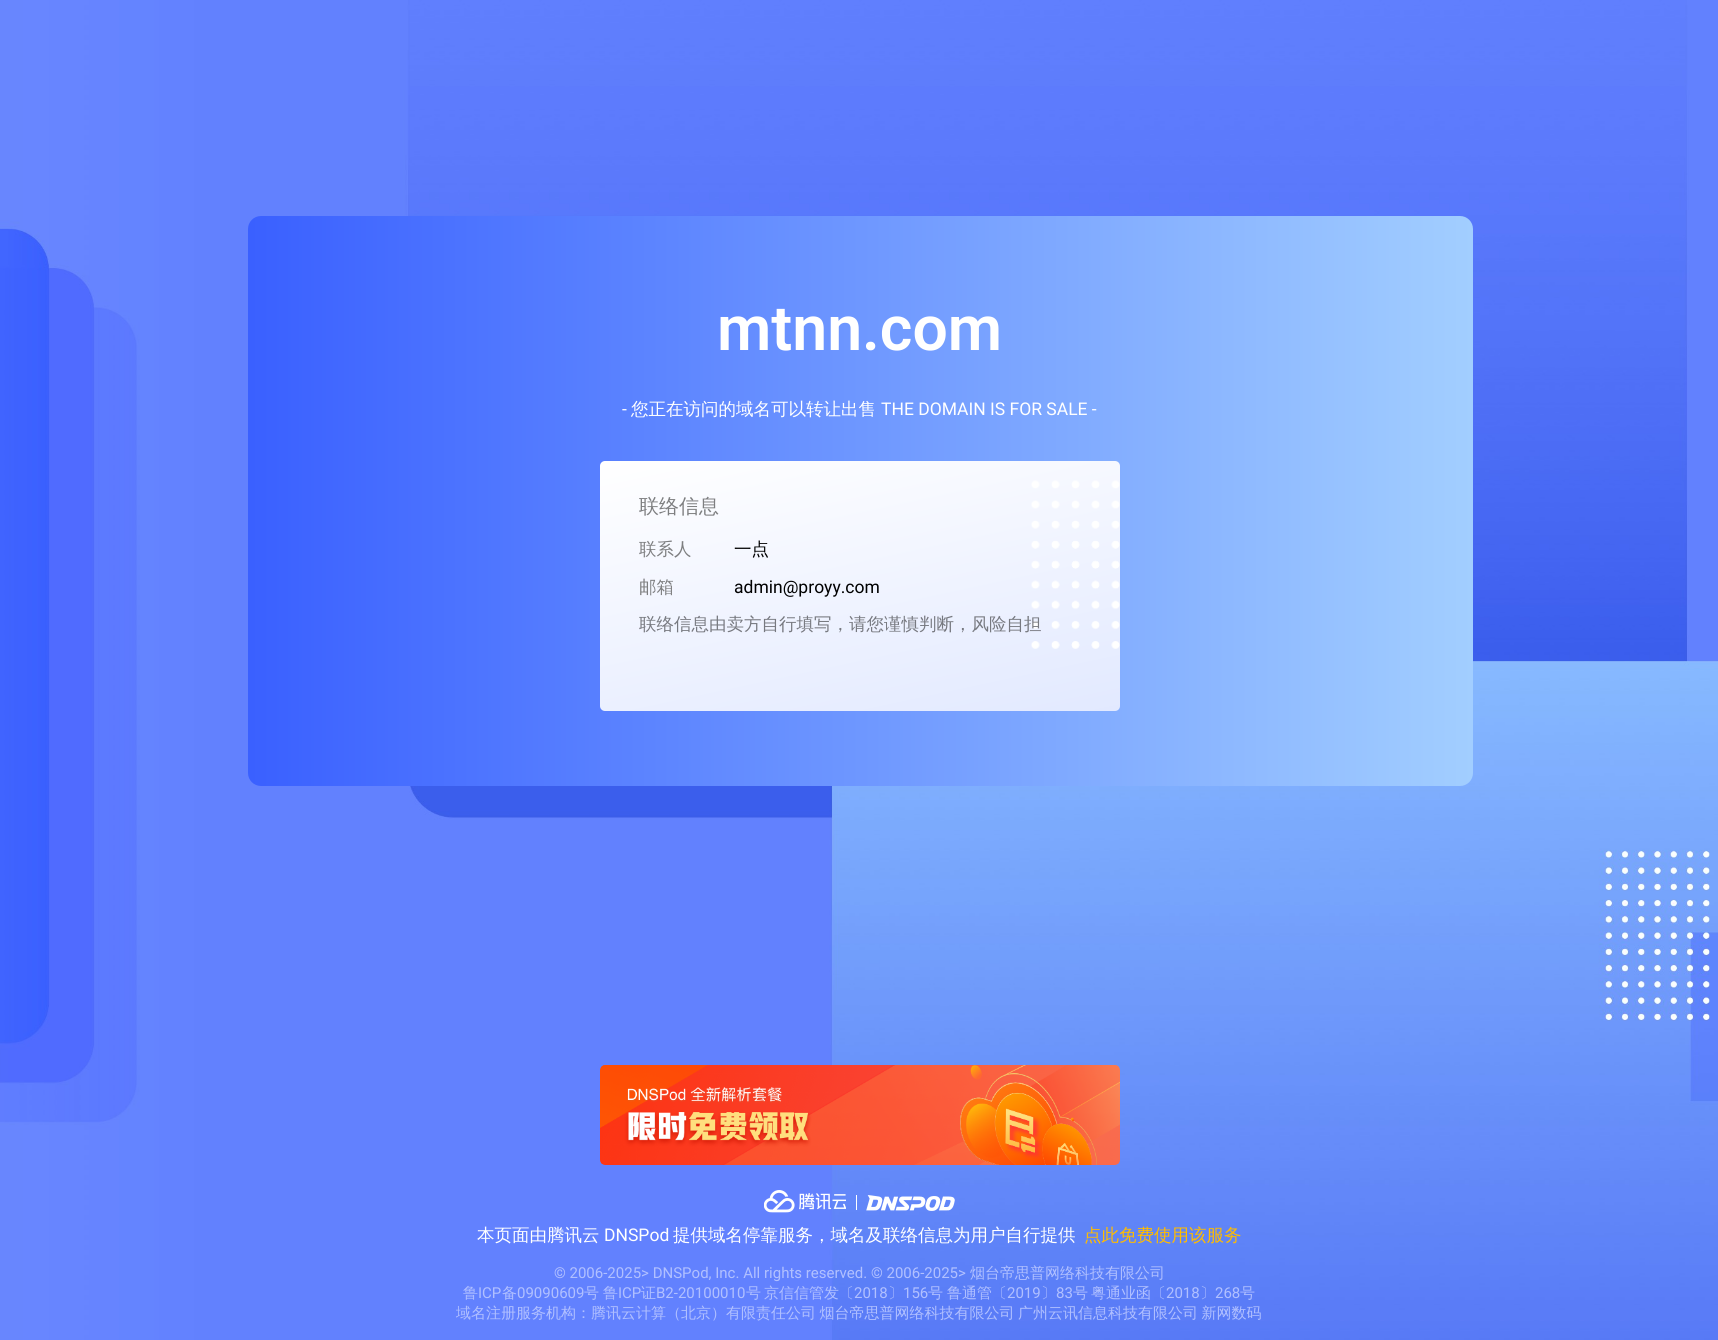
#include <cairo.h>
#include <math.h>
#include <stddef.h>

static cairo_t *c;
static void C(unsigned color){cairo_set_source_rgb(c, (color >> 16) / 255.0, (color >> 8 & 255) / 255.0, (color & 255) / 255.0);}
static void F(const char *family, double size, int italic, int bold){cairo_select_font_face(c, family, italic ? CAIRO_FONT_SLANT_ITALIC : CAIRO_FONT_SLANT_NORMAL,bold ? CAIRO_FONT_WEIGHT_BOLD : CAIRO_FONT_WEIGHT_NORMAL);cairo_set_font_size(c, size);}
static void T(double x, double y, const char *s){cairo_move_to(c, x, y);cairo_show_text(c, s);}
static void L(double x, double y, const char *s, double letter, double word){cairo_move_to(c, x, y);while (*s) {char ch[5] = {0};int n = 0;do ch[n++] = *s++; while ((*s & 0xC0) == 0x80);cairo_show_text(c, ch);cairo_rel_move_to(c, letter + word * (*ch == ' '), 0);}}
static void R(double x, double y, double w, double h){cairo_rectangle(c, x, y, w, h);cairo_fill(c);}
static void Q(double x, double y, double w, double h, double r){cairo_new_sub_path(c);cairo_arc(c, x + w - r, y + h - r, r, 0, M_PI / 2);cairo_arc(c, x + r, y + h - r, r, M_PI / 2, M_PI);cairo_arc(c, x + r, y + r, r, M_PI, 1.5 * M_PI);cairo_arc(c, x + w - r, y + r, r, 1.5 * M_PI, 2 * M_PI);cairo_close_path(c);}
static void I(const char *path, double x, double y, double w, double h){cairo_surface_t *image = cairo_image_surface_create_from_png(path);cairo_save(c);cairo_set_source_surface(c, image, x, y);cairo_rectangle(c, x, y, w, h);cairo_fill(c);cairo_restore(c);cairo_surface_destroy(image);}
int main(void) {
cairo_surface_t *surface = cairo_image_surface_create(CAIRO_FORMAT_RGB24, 1718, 1340);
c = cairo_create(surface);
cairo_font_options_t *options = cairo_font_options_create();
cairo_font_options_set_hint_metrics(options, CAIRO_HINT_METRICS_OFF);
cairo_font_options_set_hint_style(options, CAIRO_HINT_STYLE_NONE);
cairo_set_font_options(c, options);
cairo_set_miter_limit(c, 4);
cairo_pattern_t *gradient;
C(0xffffff);
cairo_paint(c);
I("1.png",0,0,1718,1340);
gradient = cairo_pattern_create_linear(248,501,1473,501);
cairo_pattern_add_color_stop_rgba(gradient,0,0.227,0.376,1,1);
cairo_pattern_add_color_stop_rgba(gradient,1,0.635,0.808,1,1);
cairo_set_source(c,gradient);
cairo_pattern_destroy(gradient);
Q(248,216,1225,570,13);
cairo_fill(c);
F("Roboto SemiBold",62.5,0,0);
C(0xffffff);
T(717,350,"mtnn.com");
F("Roboto",17.5,0,0);
T(622,415,"-");
F("WenQuanYi Zen Hei Medium",17.5,0,0);
T(631,415,"您正在访问的域名可以转让出售");
F("Roboto",17.5,0,0);
T(881,415,"THE DOMAIN IS FOR SALE -");
gradient = cairo_pattern_create_linear(823,414,897,759);
cairo_pattern_add_color_stop_rgba(gradient,0,1,1,1,1);
cairo_pattern_add_color_stop_rgba(gradient,1,0.886,0.914,1,1);
cairo_set_source(c,gradient);
cairo_pattern_destroy(gradient);
Q(600,461,520,250,5);
cairo_fill(c);
F("WenQuanYi Zen Hei Medium",20,0,0);
C(0x7d7e80);
T(639,513,"联络信息");
I("2.png",1031,480,89,169);
F("WenQuanYi Zen Hei Medium",17.5,0,0);
T(639,555,"联系人");
C(0x000000);
T(734,555,"一点");
C(0x7d7e80);
T(639,593,"邮箱");
F("Roboto",17.5,0,0);
C(0x000000);
T(734,593,"admin@proyy.com");
F("WenQuanYi Zen Hei Medium",17.5,0,0);
C(0x777980);
T(639,630,"联络信息由卖方自行填写，请您谨慎判断，风险自担");
I("3.png",600,1065,520,100);
I("4.png",764,1190,82,23);
I("5.png",866,1195,89,16);
C(0xffffff);
R(856,1195,1,15);
T(477,1241,"本页面由腾讯云");
F("Roboto",17.5,0,0);
T(604,1241,"DNSPod");
F("WenQuanYi Zen Hei Medium",17.5,0,0);
T(673,1241,"提供域名停靠服务，域名及联络信息为用户自行提供");
C(0xffbc00);
T(1084,1241,"点此免费使用该服务");
F("Roboto",15,0,0);
C(0xb1c0ff);
T(554,1278,"© 2006-2025> DNSPod, Inc. All");
T(764,1278,"rights reserved. © 2006-2025>");
F("WenQuanYi Zen Hei Medium",15,0,0);
T(970,1278,"烟台帝思普网络科技有限公司");
T(463,1298,"鲁");
F("Roboto",15,0,0);
T(478,1298,"ICP");
F("WenQuanYi Zen Hei Medium",15,0,0);
T(502,1298,"备");
F("Roboto",15,0,0);
T(517,1298,"09090609");
F("WenQuanYi Zen Hei Medium",15,0,0);
T(584,1298,"号");
T(603,1298,"鲁");
F("Roboto",15,0,0);
T(618,1298,"ICP");
F("WenQuanYi Zen Hei Medium",15,0,0);
T(641,1298,"证");
F("Roboto",15,0,0);
T(656,1298,"B2-20100010");
F("WenQuanYi Zen Hei Medium",15,0,0);
T(746,1298,"号");
T(764,1298,"京信信管发〔");
F("Roboto",15,0,0);
T(854,1298,"2018");
F("WenQuanYi Zen Hei Medium",15,0,0);
T(888,1298,"〕");
F("Roboto",15,0,0);
T(903,1298,"156");
F("WenQuanYi Zen Hei Medium",15,0,0);
T(928,1298,"号");
T(947,1298,"鲁通管〔");
F("Roboto",15,0,0);
T(1007,1298,"2019");
F("WenQuanYi Zen Hei Medium",15,0,0);
T(1041,1298,"〕");
F("Roboto",15,0,0);
T(1056,1298,"83");
F("WenQuanYi Zen Hei Medium",15,0,0);
T(1073,1298,"号");
T(1091,1298,"粤通业函〔");
F("Roboto",15,0,0);
T(1166,1298,"2018");
F("WenQuanYi Zen Hei Medium",15,0,0);
T(1200,1298,"〕");
F("Roboto",15,0,0);
T(1215,1298,"268");
F("WenQuanYi Zen Hei Medium",15,0,0);
T(1240,1298,"号");
L(456,1318,"域名注册服务机构：腾讯云计算（北京）有限责任公司 烟台帝思普网络科技有限公司 广州云讯信息科技有限公司 新网数码",0,-1);
cairo_surface_write_to_png(surface, "o.png");
cairo_font_options_destroy(options);
cairo_destroy(c);
cairo_surface_destroy(surface);
return 0;
}
